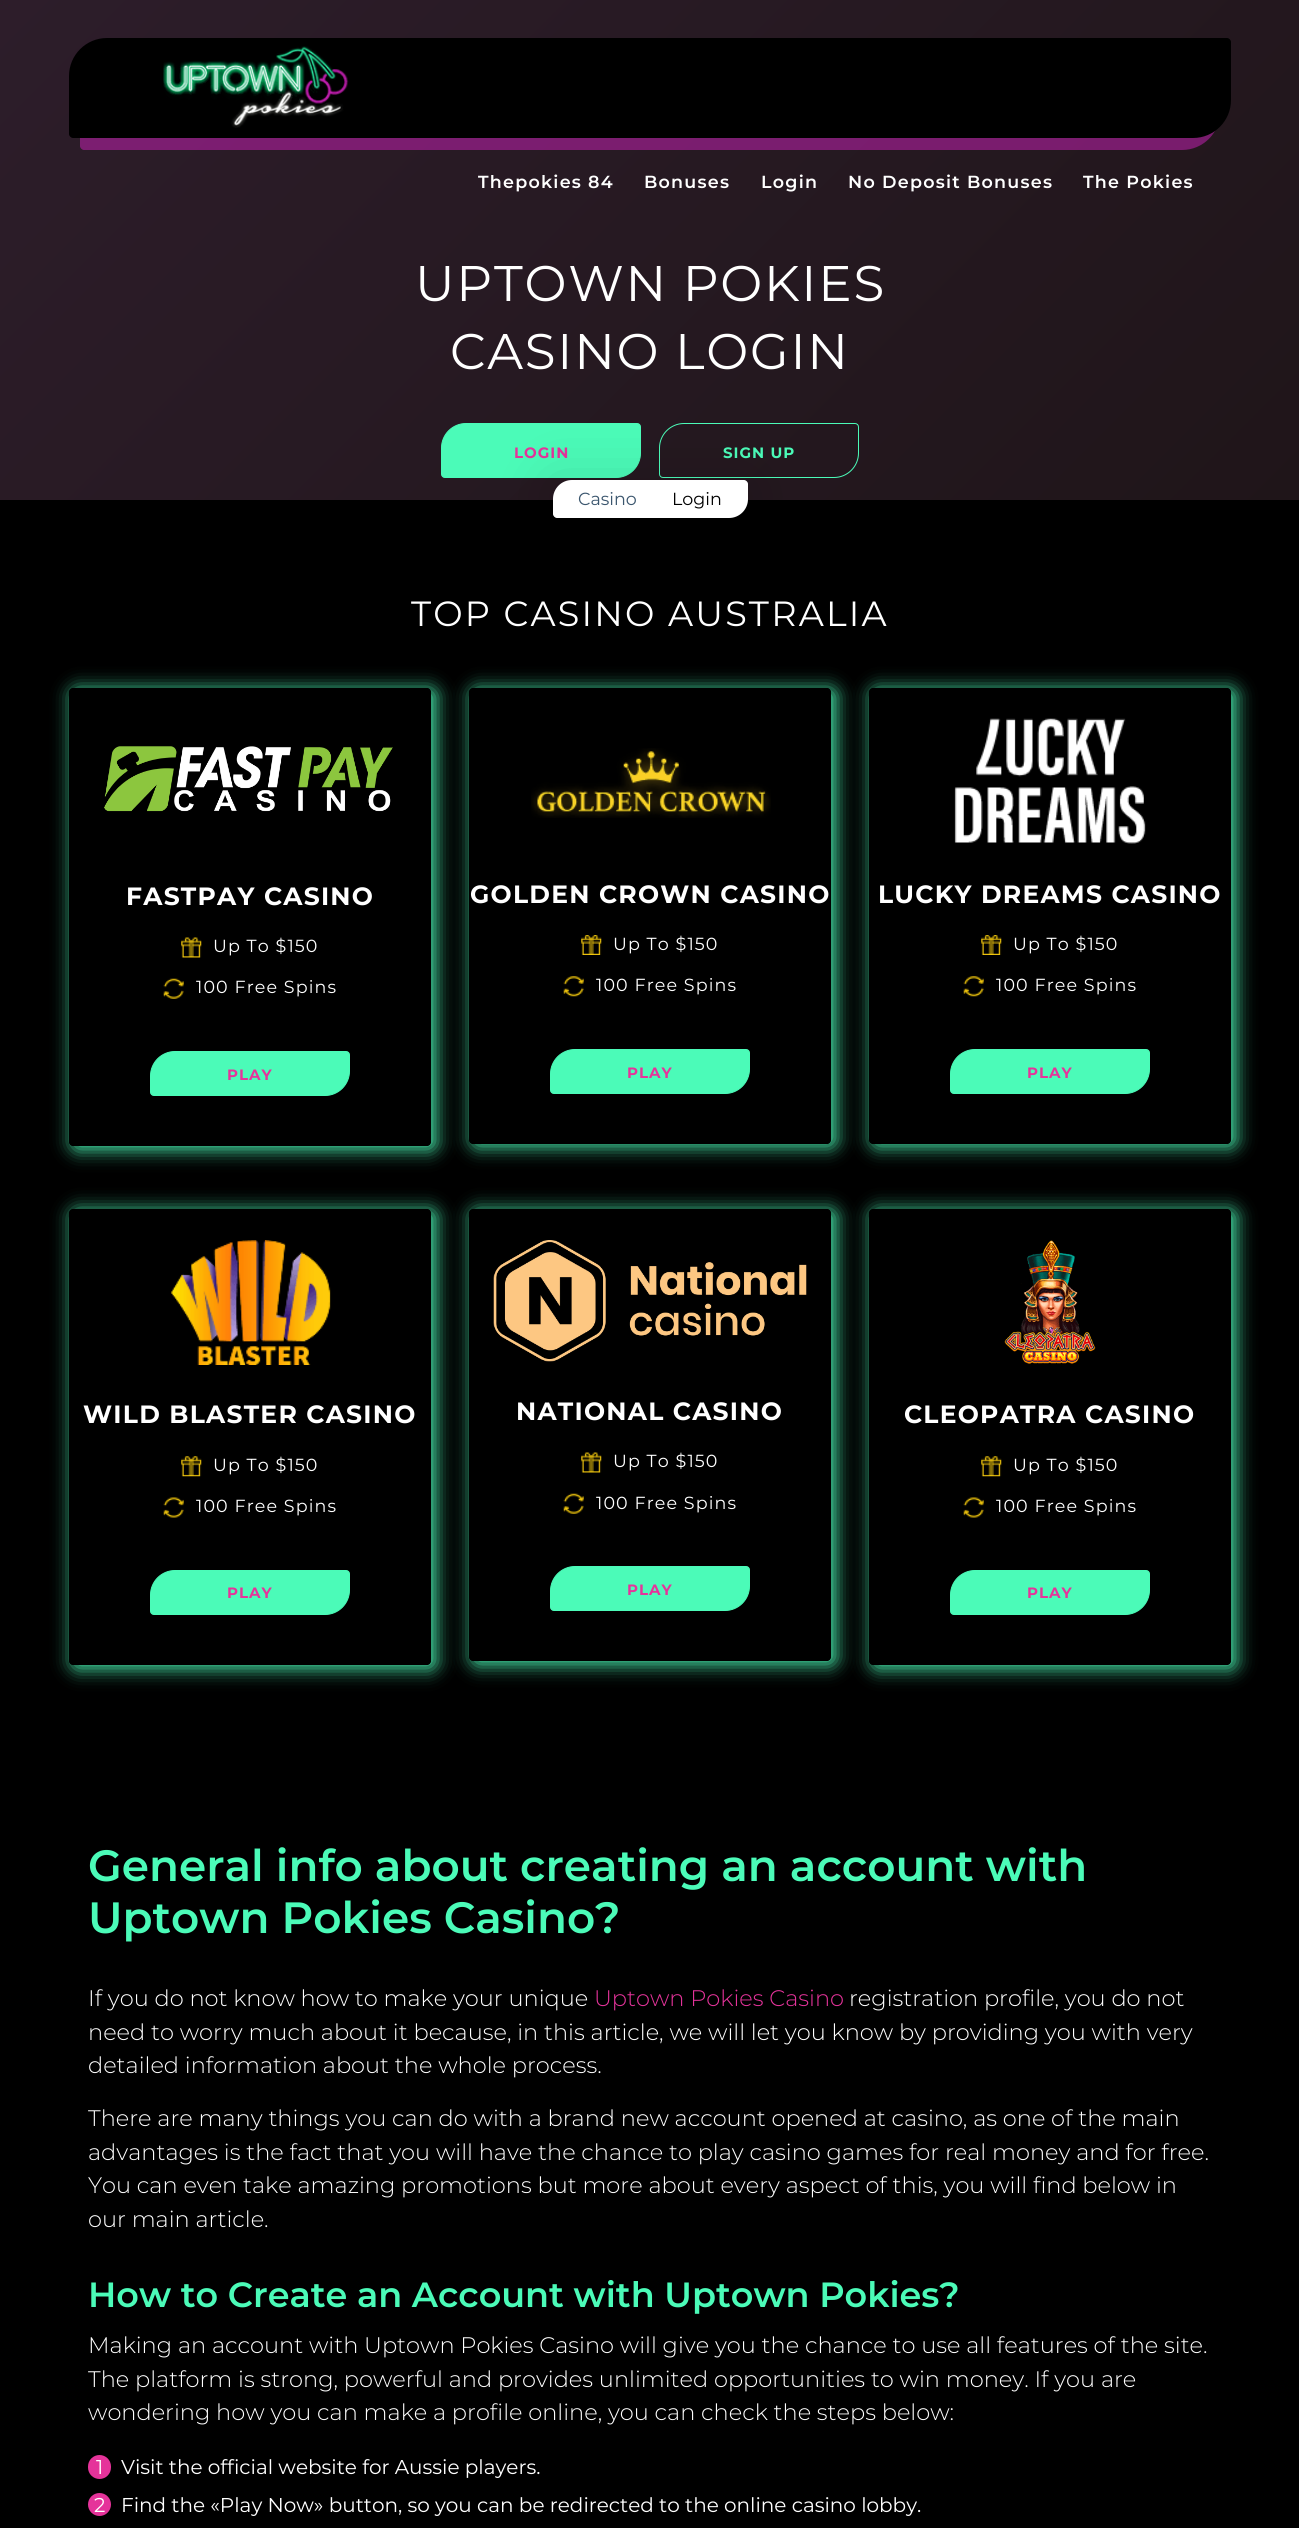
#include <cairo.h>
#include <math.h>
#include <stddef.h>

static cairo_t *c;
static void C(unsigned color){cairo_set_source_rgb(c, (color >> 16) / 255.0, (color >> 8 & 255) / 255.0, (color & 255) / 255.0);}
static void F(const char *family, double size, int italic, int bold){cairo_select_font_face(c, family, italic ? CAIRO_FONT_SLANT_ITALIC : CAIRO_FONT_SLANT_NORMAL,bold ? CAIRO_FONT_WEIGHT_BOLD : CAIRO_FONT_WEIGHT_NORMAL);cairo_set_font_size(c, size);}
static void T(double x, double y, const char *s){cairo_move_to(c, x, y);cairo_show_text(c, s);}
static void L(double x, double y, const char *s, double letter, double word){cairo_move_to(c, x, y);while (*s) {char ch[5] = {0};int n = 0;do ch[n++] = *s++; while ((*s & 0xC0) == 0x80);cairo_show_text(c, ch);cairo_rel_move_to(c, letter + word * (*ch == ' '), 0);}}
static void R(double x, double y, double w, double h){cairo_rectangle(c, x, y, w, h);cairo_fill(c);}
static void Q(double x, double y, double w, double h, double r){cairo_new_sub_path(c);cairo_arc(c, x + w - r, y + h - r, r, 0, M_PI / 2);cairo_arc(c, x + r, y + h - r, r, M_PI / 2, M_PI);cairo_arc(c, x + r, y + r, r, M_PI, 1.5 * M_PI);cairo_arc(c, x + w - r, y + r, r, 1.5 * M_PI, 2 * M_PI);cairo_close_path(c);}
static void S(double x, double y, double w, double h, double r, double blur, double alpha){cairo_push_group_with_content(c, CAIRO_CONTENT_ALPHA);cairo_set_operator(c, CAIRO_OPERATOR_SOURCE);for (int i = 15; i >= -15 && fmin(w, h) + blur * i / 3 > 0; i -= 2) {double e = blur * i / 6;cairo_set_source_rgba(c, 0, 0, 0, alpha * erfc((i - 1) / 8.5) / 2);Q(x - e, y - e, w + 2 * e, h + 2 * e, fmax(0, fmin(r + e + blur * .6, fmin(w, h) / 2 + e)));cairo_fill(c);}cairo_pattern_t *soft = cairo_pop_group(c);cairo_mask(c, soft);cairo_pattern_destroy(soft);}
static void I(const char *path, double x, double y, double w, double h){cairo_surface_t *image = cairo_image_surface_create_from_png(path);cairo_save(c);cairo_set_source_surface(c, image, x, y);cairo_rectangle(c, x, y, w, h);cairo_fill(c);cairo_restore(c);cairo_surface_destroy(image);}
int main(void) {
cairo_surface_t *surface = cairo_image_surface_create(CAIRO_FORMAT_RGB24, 1299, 2528);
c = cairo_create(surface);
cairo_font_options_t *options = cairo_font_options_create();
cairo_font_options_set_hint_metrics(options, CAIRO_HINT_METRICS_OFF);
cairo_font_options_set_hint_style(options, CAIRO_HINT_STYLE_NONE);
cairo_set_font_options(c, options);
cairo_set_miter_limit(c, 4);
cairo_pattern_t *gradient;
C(0x000000);
cairo_paint(c);
gradient = cairo_pattern_create_linear(200,-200,1100,700);
cairo_pattern_add_color_stop_rgba(gradient,0,0.176,0.114,0.165,1);
cairo_pattern_add_color_stop_rgba(gradient,1,0.122,0.082,0.098,1);
cairo_set_source(c,gradient);
cairo_pattern_destroy(gradient);
R(0,0,1299,500);
cairo_set_source_rgba(c,0.682,0.122,0.62,0.62);
cairo_new_path(c);
cairo_move_to(c,118,50);
cairo_line_to(c,1216,50);
cairo_curve_to(c,1218,50,1220,52,1220,54);
cairo_line_to(c,1220,112);
cairo_curve_to(c,1220,133,1203,150,1182,150);
cairo_line_to(c,84,150);
cairo_curve_to(c,82,150,80,148,80,146);
cairo_line_to(c,80,88);
cairo_curve_to(c,80,67,97,50,118,50);
cairo_close_path(c);
cairo_fill(c);
C(0x000000);
cairo_new_path(c);
cairo_move_to(c,107,38);
cairo_line_to(c,1227,38);
cairo_curve_to(c,1229,38,1231,40,1231,42);
cairo_line_to(c,1231,100);
cairo_curve_to(c,1231,121,1214,138,1193,138);
cairo_line_to(c,73,138);
cairo_curve_to(c,71,138,69,136,69,134);
cairo_line_to(c,69,76);
cairo_curve_to(c,69,55,86,38,107,38);
cairo_close_path(c);
cairo_fill(c);
I("1.png",163,46,186,82);
F("Montserrat SemiBold",17.5,0,0);
C(0xffffff);
L(478,188,"Thepokies 84",1.25,0);
L(644,188,"Bonuses",1.25,0);
L(761,188,"Login",1.25,0);
L(848,188,"No Deposit Bonuses",1.25,0);
L(1083,188,"The Pokies",1.25,0);
F("Montserrat",50,0,0);
L(415,301,"UPTOWN POKIES",1.75,0);
L(450,369,"CASINO LOGIN",1.75,0);
C(0x4bfbb8);
cairo_new_path(c);
cairo_move_to(c,466,423.5);
cairo_line_to(c,637,423.5);
cairo_curve_to(c,639,423.5,640.5,425,640.5,427);
cairo_line_to(c,640.5,453);
cairo_curve_to(c,640.5,466.5,629.5,477.5,616,477.5);
cairo_line_to(c,445,477.5);
cairo_curve_to(c,443,477.5,441.5,476,441.5,474);
cairo_line_to(c,441.5,448);
cairo_curve_to(c,441.5,434.5,452.5,423.5,466,423.5);
cairo_close_path(c);
cairo_fill_preserve(c);
cairo_set_line_width(c,1);
cairo_stroke(c);
F("Montserrat",15,0,1);
C(0xe6339b);
L(514,458,"LOGIN",1,0);
cairo_new_path(c);
cairo_move_to(c,684,423.5);
cairo_line_to(c,855,423.5);
cairo_curve_to(c,857,423.5,858.5,425,858.5,427);
cairo_line_to(c,858.5,453);
cairo_curve_to(c,858.5,466.5,847.5,477.5,834,477.5);
cairo_line_to(c,663,477.5);
cairo_curve_to(c,661,477.5,659.5,476,659.5,474);
cairo_line_to(c,659.5,448);
cairo_curve_to(c,659.5,434.5,670.5,423.5,684,423.5);
cairo_close_path(c);
C(0x4bfbb8);
cairo_stroke(c);
L(723,458,"SIGN UP",1,0);
C(0x000000);
S(553,483,195,37,18.5,30,.13);
C(0xffffff);
cairo_new_path(c);
cairo_move_to(c,572,480);
cairo_line_to(c,744,480);
cairo_curve_to(c,746,480,748,482,748,484);
cairo_line_to(c,748,499);
cairo_curve_to(c,748,509.5,739.5,518,729,518);
cairo_line_to(c,557,518);
cairo_curve_to(c,555,518,553,516,553,514);
cairo_line_to(c,553,499);
cairo_curve_to(c,553,488.5,561.5,480,572,480);
cairo_close_path(c);
cairo_fill(c);
F("Montserrat",17.5,0,0);
C(0x3b566e);
T(578,505,"Casino");
C(0x000000);
T(672,505,"Login");
F("Montserrat",35,0,0);
C(0xffffff);
L(411,626,"TOP CASINO AUSTRALIA",2.2,0);
cairo_save(c);
cairo_set_fill_rule(c,CAIRO_FILL_RULE_EVEN_ODD);
cairo_new_path(c);
cairo_move_to(c,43,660);
cairo_line_to(c,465,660);
cairo_line_to(c,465,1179);
cairo_line_to(c,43,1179);
cairo_close_path(c);
cairo_move_to(c,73,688);
cairo_line_to(c,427,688);
cairo_curve_to(c,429,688,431,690,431,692);
cairo_line_to(c,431,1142);
cairo_curve_to(c,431,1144,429,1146,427,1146);
cairo_line_to(c,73,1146);
cairo_curve_to(c,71,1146,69,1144,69,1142);
cairo_line_to(c,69,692);
cairo_curve_to(c,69,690,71,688,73,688);
cairo_close_path(c);
cairo_clip(c);
C(0x4bfbb8);
S(73,690,362,459,4,9.5,1);
cairo_restore(c);
I("2.png",104,746,289,66);
F("Montserrat",25,0,1);
L(126,905,"FASTPAY CASINO",1.25,0);
I("3.png",181,937,21,21);
F("Montserrat",17.5,0,0);
L(213,952,"Up To $150",1.1,0);
I("4.png",163,978,21,21);
L(196,993,"100 Free Spins",1.1,0);
C(0x4bfbb8);
cairo_new_path(c);
cairo_move_to(c,175,1051.5);
cairo_line_to(c,346,1051.5);
cairo_curve_to(c,348,1051.5,349.5,1053,349.5,1055);
cairo_line_to(c,349.5,1071);
cairo_curve_to(c,349.5,1084.5,338.5,1095.5,325,1095.5);
cairo_line_to(c,154,1095.5);
cairo_curve_to(c,152,1095.5,150.5,1094,150.5,1092);
cairo_line_to(c,150.5,1076);
cairo_curve_to(c,150.5,1062.5,161.5,1051.5,175,1051.5);
cairo_close_path(c);
cairo_fill_preserve(c);
cairo_stroke(c);
F("Montserrat",15,0,1);
C(0xe6339b);
L(227,1080,"PLAY",1,0);
cairo_save(c);
cairo_set_fill_rule(c,CAIRO_FILL_RULE_EVEN_ODD);
cairo_new_path(c);
cairo_move_to(c,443,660);
cairo_line_to(c,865,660);
cairo_line_to(c,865,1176);
cairo_line_to(c,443,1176);
cairo_close_path(c);
cairo_move_to(c,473,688);
cairo_line_to(c,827,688);
cairo_curve_to(c,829,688,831,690,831,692);
cairo_line_to(c,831,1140);
cairo_curve_to(c,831,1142,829,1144,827,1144);
cairo_line_to(c,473,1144);
cairo_curve_to(c,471,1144,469,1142,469,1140);
cairo_line_to(c,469,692);
cairo_curve_to(c,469,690,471,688,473,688);
cairo_close_path(c);
cairo_clip(c);
C(0x4bfbb8);
S(473,690,362,456,4,9.5,1);
cairo_restore(c);
I("5.png",531,748,240,70);
F("Montserrat",25,0,1);
C(0xffffff);
L(470,903,"GOLDEN CROWN CASINO",1.25,0);
I("6.png",581,935,21,20);
F("Montserrat",17.5,0,0);
L(613,950,"Up To $150",1.1,0);
I("7.png",563,976,21,21);
L(596,991,"100 Free Spins",1.1,0);
C(0x4bfbb8);
cairo_new_path(c);
cairo_move_to(c,575,1049.5);
cairo_line_to(c,746,1049.5);
cairo_curve_to(c,748,1049.5,749.5,1051,749.5,1053);
cairo_line_to(c,749.5,1069);
cairo_curve_to(c,749.5,1082.5,738.5,1093.5,725,1093.5);
cairo_line_to(c,554,1093.5);
cairo_curve_to(c,552,1093.5,550.5,1092,550.5,1090);
cairo_line_to(c,550.5,1074);
cairo_curve_to(c,550.5,1060.5,561.5,1049.5,575,1049.5);
cairo_close_path(c);
cairo_fill_preserve(c);
cairo_stroke(c);
F("Montserrat",15,0,1);
C(0xe6339b);
L(627,1078,"PLAY",1,0);
cairo_save(c);
cairo_set_fill_rule(c,CAIRO_FILL_RULE_EVEN_ODD);
cairo_new_path(c);
cairo_move_to(c,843,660);
cairo_line_to(c,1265,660);
cairo_line_to(c,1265,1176);
cairo_line_to(c,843,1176);
cairo_close_path(c);
cairo_move_to(c,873,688);
cairo_line_to(c,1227,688);
cairo_curve_to(c,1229,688,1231,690,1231,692);
cairo_line_to(c,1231,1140);
cairo_curve_to(c,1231,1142,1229,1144,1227,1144);
cairo_line_to(c,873,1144);
cairo_curve_to(c,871,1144,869,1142,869,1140);
cairo_line_to(c,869,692);
cairo_curve_to(c,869,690,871,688,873,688);
cairo_close_path(c);
cairo_clip(c);
C(0x4bfbb8);
S(873,690,362,456,4,9.5,1);
cairo_restore(c);
I("8.png",954,718,192,126);
F("Montserrat",25,0,1);
C(0xffffff);
L(878,903,"LUCKY DREAMS CASINO",1.25,0);
I("6.png",981,935,21,20);
F("Montserrat",17.5,0,0);
L(1013,950,"Up To $150",1.1,0);
I("7.png",963,976,21,21);
L(996,991,"100 Free Spins",1.1,0);
C(0x4bfbb8);
cairo_new_path(c);
cairo_move_to(c,975,1049.5);
cairo_line_to(c,1146,1049.5);
cairo_curve_to(c,1148,1049.5,1149.5,1051,1149.5,1053);
cairo_line_to(c,1149.5,1069);
cairo_curve_to(c,1149.5,1082.5,1138.5,1093.5,1125,1093.5);
cairo_line_to(c,954,1093.5);
cairo_curve_to(c,952,1093.5,950.5,1092,950.5,1090);
cairo_line_to(c,950.5,1074);
cairo_curve_to(c,950.5,1060.5,961.5,1049.5,975,1049.5);
cairo_close_path(c);
cairo_fill_preserve(c);
cairo_stroke(c);
F("Montserrat",15,0,1);
C(0xe6339b);
L(1027,1078,"PLAY",1,0);
cairo_save(c);
cairo_set_fill_rule(c,CAIRO_FILL_RULE_EVEN_ODD);
cairo_new_path(c);
cairo_move_to(c,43,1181);
cairo_line_to(c,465,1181);
cairo_line_to(c,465,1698);
cairo_line_to(c,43,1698);
cairo_close_path(c);
cairo_move_to(c,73,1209);
cairo_line_to(c,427,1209);
cairo_curve_to(c,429,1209,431,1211,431,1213);
cairo_line_to(c,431,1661);
cairo_curve_to(c,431,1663,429,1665,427,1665);
cairo_line_to(c,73,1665);
cairo_curve_to(c,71,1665,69,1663,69,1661);
cairo_line_to(c,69,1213);
cairo_curve_to(c,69,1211,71,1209,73,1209);
cairo_close_path(c);
cairo_clip(c);
C(0x4bfbb8);
S(73,1211,362,457,4,9.5,1);
cairo_restore(c);
I("9.png",171,1240,160,125);
F("Montserrat",25,0,1);
C(0xffffff);
L(83,1423,"WILD BLASTER CASINO",1.25,0);
I("10.png",181,1456,21,21);
F("Montserrat",17.5,0,0);
L(213,1471,"Up To $150",1.1,0);
I("11.png",163,1497,21,21);
L(196,1512,"100 Free Spins",1.1,0);
C(0x4bfbb8);
cairo_new_path(c);
cairo_move_to(c,175,1570.5);
cairo_line_to(c,346,1570.5);
cairo_curve_to(c,348,1570.5,349.5,1572,349.5,1574);
cairo_line_to(c,349.5,1590);
cairo_curve_to(c,349.5,1603.5,338.5,1614.5,325,1614.5);
cairo_line_to(c,154,1614.5);
cairo_curve_to(c,152,1614.5,150.5,1613,150.5,1611);
cairo_line_to(c,150.5,1595);
cairo_curve_to(c,150.5,1581.5,161.5,1570.5,175,1570.5);
cairo_close_path(c);
cairo_fill_preserve(c);
cairo_stroke(c);
F("Montserrat",15,0,1);
C(0xe6339b);
L(227,1598,"PLAY",1,0);
cairo_save(c);
cairo_set_fill_rule(c,CAIRO_FILL_RULE_EVEN_ODD);
cairo_new_path(c);
cairo_move_to(c,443,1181);
cairo_line_to(c,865,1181);
cairo_line_to(c,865,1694);
cairo_line_to(c,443,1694);
cairo_close_path(c);
cairo_move_to(c,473,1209);
cairo_line_to(c,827,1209);
cairo_curve_to(c,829,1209,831,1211,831,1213);
cairo_line_to(c,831,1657);
cairo_curve_to(c,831,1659,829,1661,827,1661);
cairo_line_to(c,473,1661);
cairo_curve_to(c,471,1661,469,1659,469,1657);
cairo_line_to(c,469,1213);
cairo_curve_to(c,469,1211,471,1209,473,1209);
cairo_close_path(c);
cairo_clip(c);
C(0x4bfbb8);
S(473,1211,362,453,4,9.5,1);
cairo_restore(c);
I("12.png",493,1240,314,122);
F("Montserrat",25,0,1);
C(0xffffff);
L(516,1420,"NATIONAL CASINO",1.25,0);
I("3.png",581,1452,21,21);
F("Montserrat",17.5,0,0);
L(613,1467,"Up To $150",1.1,0);
I("13.png",563,1493,21,21);
L(596,1509,"100 Free Spins",1.1,0);
C(0x4bfbb8);
cairo_new_path(c);
cairo_move_to(c,575,1566.5);
cairo_line_to(c,746,1566.5);
cairo_curve_to(c,748,1566.5,749.5,1568,749.5,1570);
cairo_line_to(c,749.5,1586);
cairo_curve_to(c,749.5,1599.5,738.5,1610.5,725,1610.5);
cairo_line_to(c,554,1610.5);
cairo_curve_to(c,552,1610.5,550.5,1609,550.5,1607);
cairo_line_to(c,550.5,1591);
cairo_curve_to(c,550.5,1577.5,561.5,1566.5,575,1566.5);
cairo_close_path(c);
cairo_fill_preserve(c);
cairo_stroke(c);
F("Montserrat",15,0,1);
C(0xe6339b);
L(627,1595,"PLAY",1,0);
cairo_save(c);
cairo_set_fill_rule(c,CAIRO_FILL_RULE_EVEN_ODD);
cairo_new_path(c);
cairo_move_to(c,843,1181);
cairo_line_to(c,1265,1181);
cairo_line_to(c,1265,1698);
cairo_line_to(c,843,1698);
cairo_close_path(c);
cairo_move_to(c,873,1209);
cairo_line_to(c,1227,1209);
cairo_curve_to(c,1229,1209,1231,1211,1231,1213);
cairo_line_to(c,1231,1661);
cairo_curve_to(c,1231,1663,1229,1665,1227,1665);
cairo_line_to(c,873,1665);
cairo_curve_to(c,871,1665,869,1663,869,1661);
cairo_line_to(c,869,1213);
cairo_curve_to(c,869,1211,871,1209,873,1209);
cairo_close_path(c);
cairo_clip(c);
C(0x4bfbb8);
S(873,1211,362,457,4,9.5,1);
cairo_restore(c);
I("14.png",1004,1240,92,124);
F("Montserrat",25,0,1);
C(0xffffff);
L(904,1423,"CLEOPATRA CASINO",1.25,0);
I("10.png",981,1456,21,21);
F("Montserrat",17.5,0,0);
L(1013,1471,"Up To $150",1.1,0);
I("15.png",963,1497,21,21);
L(996,1512,"100 Free Spins",1.1,0);
C(0x4bfbb8);
cairo_new_path(c);
cairo_move_to(c,975,1570.5);
cairo_line_to(c,1146,1570.5);
cairo_curve_to(c,1148,1570.5,1149.5,1572,1149.5,1574);
cairo_line_to(c,1149.5,1590);
cairo_curve_to(c,1149.5,1603.5,1138.5,1614.5,1125,1614.5);
cairo_line_to(c,954,1614.5);
cairo_curve_to(c,952,1614.5,950.5,1613,950.5,1611);
cairo_line_to(c,950.5,1595);
cairo_curve_to(c,950.5,1581.5,961.5,1570.5,975,1570.5);
cairo_close_path(c);
cairo_fill_preserve(c);
cairo_stroke(c);
F("Montserrat",15,0,1);
C(0xe6339b);
L(1027,1598,"PLAY",1,0);
F("Montserrat SemiBold",43.75,0,0);
C(0x4bfbb8);
T(88,1881,"General info about creating an account with");
T(88,1933,"Uptown Pokies Casino?");
F("Montserrat Light",22.5,0,0);
C(0xffffff);
T(88,2006,"If you do not know how to make your unique");
C(0xe6339b);
T(594,2006,"Uptown Pokies Casino");
C(0xffffff);
T(849,2006,"registration profile, you do not");
T(88,2040,"need to worry much about it because, in this article, we will let you know by providing you with very");
T(88,2073,"detailed information about the whole process.");
T(88,2126,"There are many things you can do with a brand new account opened at casino, as one of the main");
T(88,2160,"advantages is the fact that you will have the chance to play casino games for real money and for free.");
T(88,2193,"You can even take amazing promotions but more about every aspect of this, you will find below in");
T(88,2227,"our main article.");
F("Montserrat SemiBold",35,0,0);
C(0x4bfbb8);
T(88,2307,"How to Create an Account with Uptown Pokies?");
F("Montserrat Light",22.5,0,0);
C(0xffffff);
T(88,2353,"Making an account with Uptown Pokies Casino will give you the chance to use all features of the site.");
T(88,2387,"The platform is strong, powerful and provides unlimited opportunities to win money. If you are");
T(88,2420,"wondering how you can make a profile online, you can check the steps below:");
C(0xe5339a);
Q(88,2455,23,24,11.5);
cairo_fill(c);
F("Montserrat",20,0,0);
C(0xffffff);
T(96,2474,"1");
T(121,2474,"Visit the official website for Aussie players.");
C(0xe5339a);
cairo_new_path(c);
cairo_arc(c,99.5,2504.5,11.5,0,2 * M_PI);
cairo_fill(c);
C(0xffffff);
T(94,2512,"2");
T(121,2512,"Find the «Play Now» button, so you can be redirected to the online casino lobby.");
cairo_surface_write_to_png(surface, "o.png");
cairo_font_options_destroy(options);
cairo_destroy(c);
cairo_surface_destroy(surface);
return 0;
}
